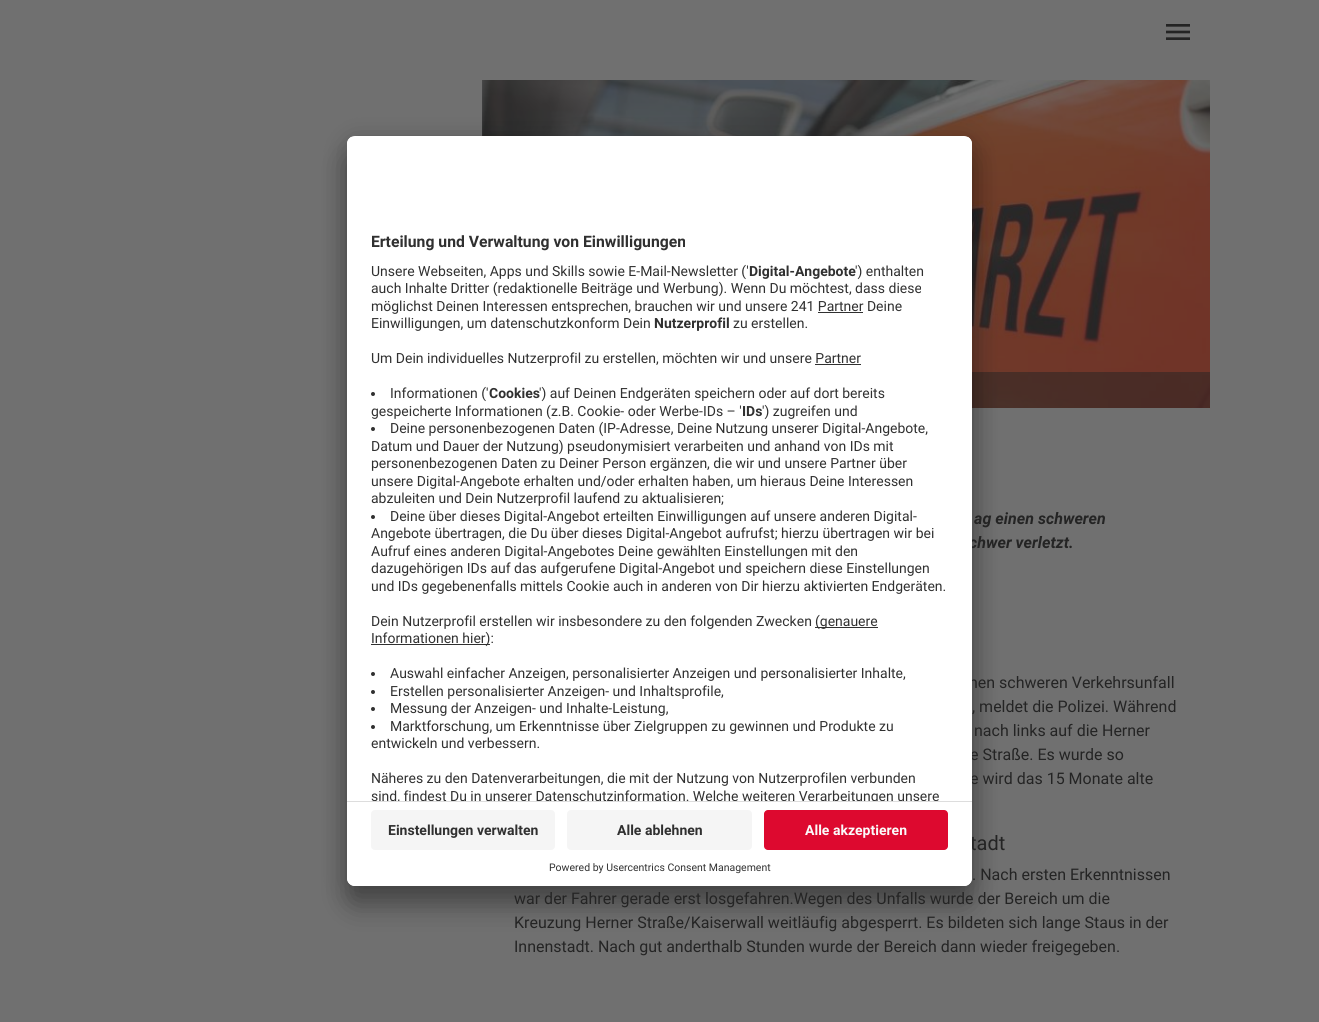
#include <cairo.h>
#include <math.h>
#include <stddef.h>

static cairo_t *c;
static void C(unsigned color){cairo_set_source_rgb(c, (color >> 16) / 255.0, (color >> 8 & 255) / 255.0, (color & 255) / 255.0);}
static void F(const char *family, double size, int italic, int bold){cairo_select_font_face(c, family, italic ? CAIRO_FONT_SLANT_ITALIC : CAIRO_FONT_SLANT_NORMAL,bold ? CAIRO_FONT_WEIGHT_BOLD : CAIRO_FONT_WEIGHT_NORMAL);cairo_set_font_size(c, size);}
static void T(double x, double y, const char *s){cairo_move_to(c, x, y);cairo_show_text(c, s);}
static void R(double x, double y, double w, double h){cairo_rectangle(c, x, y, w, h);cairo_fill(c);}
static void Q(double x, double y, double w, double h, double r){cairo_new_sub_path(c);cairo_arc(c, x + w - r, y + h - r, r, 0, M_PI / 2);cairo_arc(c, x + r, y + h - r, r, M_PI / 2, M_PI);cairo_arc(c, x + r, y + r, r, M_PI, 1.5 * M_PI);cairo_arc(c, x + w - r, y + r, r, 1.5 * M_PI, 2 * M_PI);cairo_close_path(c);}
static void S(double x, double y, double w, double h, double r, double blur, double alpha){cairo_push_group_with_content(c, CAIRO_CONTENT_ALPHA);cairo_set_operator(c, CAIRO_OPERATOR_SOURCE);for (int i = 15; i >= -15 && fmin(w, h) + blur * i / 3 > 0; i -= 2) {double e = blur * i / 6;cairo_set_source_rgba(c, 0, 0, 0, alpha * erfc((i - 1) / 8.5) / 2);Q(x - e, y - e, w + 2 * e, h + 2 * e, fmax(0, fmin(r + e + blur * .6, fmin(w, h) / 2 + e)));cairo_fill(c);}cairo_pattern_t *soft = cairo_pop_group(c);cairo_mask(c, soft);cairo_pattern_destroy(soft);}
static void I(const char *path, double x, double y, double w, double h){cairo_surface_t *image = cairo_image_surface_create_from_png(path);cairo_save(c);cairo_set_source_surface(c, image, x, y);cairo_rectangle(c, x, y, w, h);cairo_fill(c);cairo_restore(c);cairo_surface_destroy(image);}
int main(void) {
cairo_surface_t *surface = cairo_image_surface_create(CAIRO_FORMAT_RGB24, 1319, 1022);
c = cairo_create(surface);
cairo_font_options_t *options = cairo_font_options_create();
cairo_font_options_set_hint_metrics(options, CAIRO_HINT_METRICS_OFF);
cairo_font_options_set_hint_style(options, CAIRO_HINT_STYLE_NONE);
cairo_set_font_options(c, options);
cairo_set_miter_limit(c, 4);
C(0x707070);
cairo_paint(c);
I("2.png",482,80,728,328);
cairo_set_source_rgba(c,0.141,0.141,0.141,0.5);
R(972,372,238,36);
C(0x000000);
S(347,156,625,750,8,14,.3);
S(347,141,625,750,8,13,.22);
F("Roboto",16,1,1);
C(0x242424);
T(969,548,"chwer verletzt.");
F("Roboto",16,0,0);
T(969,688,"nen schweren Verkehrsunfall");
T(972,712,", meldet die Polizei. Während");
T(970,760,"e Straße. Es wurde so");
T(970,784,"e wird das 15 Monate alte");
F("Roboto",20,0,0);
T(970,850,"tadt");
C(0xffffff);
Q(347,136,625,750,8);
cairo_fill(c);
cairo_save(c);
Q(347,136,625,750,8);
cairo_clip(c);
cairo_new_path(c);
cairo_move_to(c,355,136);
cairo_line_to(c,964,136);
cairo_curve_to(c,968.5,136,972,139.5,972,144);
cairo_line_to(c,972,801);
cairo_line_to(c,347,801);
cairo_line_to(c,347,144);
cairo_curve_to(c,347,139.5,350.5,136,355,136);
cairo_close_path(c);
cairo_clip(c);
R(347,137,625,664);
cairo_restore(c);
F("Roboto",15.75,0,1);
C(0x303030);
T(371,247,"Erteilung und Verwaltung von Einwilligungen");
F("Roboto",14,0,0);
T(371,276,"Unsere Webseiten, Apps und Skills sowie E-Mail-Newsletter ('");
F("Roboto",14,0,1);
T(749,276,"Digital-Angebote");
F("Roboto",14,0,0);
T(855,276,"') enthalten");
T(371,293,"auch Inhalte Dritter (redaktionelle Beiträge und Werbung). Wenn Du möchtest, dass diese");
T(371,311,"möglichst Deinen Interessen entsprechen, brauchen wir und unsere 241 Partner Deine");
R(818,312,45,1);
T(371,328,"Einwilligungen, um datenschutzkonform Dein");
F("Roboto",14,0,1);
T(654,328,"Nutzerprofil");
F("Roboto",14,0,0);
T(733,328,"zu erstellen.");
T(371,363,"Um Dein individuelles Nutzerprofil zu erstellen, möchten wir und unsere Partner");
R(815,364,46,1);
cairo_new_path(c);
cairo_arc(c,373,394,2,0,2 * M_PI);
cairo_fill(c);
T(390,398,"Informationen ('");
F("Roboto",14,0,1);
T(489,398,"Cookies");
F("Roboto",14,0,0);
T(539,398,"') auf Deinen Endgeräten speichern oder auf dort bereits");
T(371,416,"gespeicherte Informationen (z.B. Cookie- oder Werbe-IDs – '");
F("Roboto",14,0,1);
T(742,416,"IDs");
F("Roboto",14,0,0);
T(762,416,"') zugreifen und");
cairo_new_path(c);
cairo_arc(c,373,429,2,0,2 * M_PI);
cairo_fill(c);
T(390,433,"Deine personenbezogenen Daten (IP-Adresse, Deine Nutzung unserer Digital-Angebote,");
T(371,451,"Datum und Dauer der Nutzung) pseudonymisiert verarbeiten und anhand von IDs mit");
T(371,468,"personenbezogenen Daten zu Deiner Person ergänzen, die wir und unsere Partner über");
T(371,486,"unsere Digital-Angebote erhalten und/oder erhalten haben, um hieraus Deine Interessen");
T(371,503,"abzuleiten und Dein Nutzerprofil laufend zu aktualisieren;");
cairo_new_path(c);
cairo_arc(c,373,517,2,0,2 * M_PI);
cairo_fill(c);
T(390,521,"Deine über dieses Digital-Angebot erteilten Einwilligungen auf unsere anderen Digital-");
T(371,538,"Angebote übertragen, die Du über dieses Digital-Angebot aufrufst; hierzu übertragen wir bei");
T(371,556,"Aufruf eines anderen Digital-Angebotes Deine gewählten Einstellungen mit den");
T(371,573,"dazugehörigen IDs auf das aufgerufene Digital-Angebot und speichern diese Einstellungen");
T(371,591,"und IDs gegebenenfalls mittels Cookie auch in anderen von Dir hierzu aktivierten Endgeräten.");
T(371,626,"Dein Nutzerprofil erstellen wir insbesondere zu den folgenden Zwecken");
R(815,627,63,1);
T(815,626,"(genauere");
R(371,644,119,1);
T(371,643,"Informationen hier):");
cairo_new_path(c);
cairo_arc(c,373,674,2,0,2 * M_PI);
cairo_fill(c);
T(390,678,"Auswahl einfacher Anzeigen, personalisierter Anzeigen und personalisierter Inhalte,");
cairo_new_path(c);
cairo_arc(c,373,692,2,0,2 * M_PI);
cairo_fill(c);
T(390,696,"Erstellen personalisierter Anzeigen- und Inhaltsprofile,");
cairo_new_path(c);
cairo_arc(c,373,709,2,0,2 * M_PI);
cairo_fill(c);
T(390,713,"Messung der Anzeigen- und Inhalte-Leistung,");
cairo_new_path(c);
cairo_arc(c,373,727,2,0,2 * M_PI);
cairo_fill(c);
T(390,731,"Marktforschung, um Erkenntnisse über Zielgruppen zu gewinnen und Produkte zu");
T(371,748,"entwickeln und verbessern.");
T(371,783,"Näheres zu den Datenverarbeitungen, die mit der Nutzung von Nutzerprofilen verbunden");
cairo_save(c);
cairo_new_path(c);
cairo_move_to(c,355,136);
cairo_line_to(c,964,136);
cairo_curve_to(c,968.5,136,972,139.5,972,144);
cairo_line_to(c,972,801);
cairo_line_to(c,347,801);
cairo_line_to(c,347,144);
cairo_curve_to(c,347,139.5,350.5,136,355,136);
cairo_close_path(c);
cairo_clip(c);
T(371,801,"sind, findest Du in unserer Datenschutzinformation. Welche weiteren Verarbeitungen unsere");
cairo_restore(c);
C(0xffffff);
cairo_new_path(c);
cairo_move_to(c,347,801);
cairo_line_to(c,972,801);
cairo_line_to(c,972,878);
cairo_curve_to(c,972,882.5,968.5,886,964,886);
cairo_line_to(c,355,886);
cairo_curve_to(c,350.5,886,347,882.5,347,878);
cairo_close_path(c);
cairo_fill(c);
C(0xdddddd);
R(347,801,625,1);
C(0xf5f5f5);
Q(371,810,184,40,4);
cairo_fill(c);
F("Roboto",14,0,1);
C(0x303030);
T(388,835,"Einstellungen verwalten");
C(0xf5f5f5);
Q(567,810,185,40,4);
cairo_fill(c);
C(0x303030);
T(617,835,"Alle ablehnen");
C(0xdd092f);
Q(764,810,184,40,4);
cairo_fill(c);
C(0xfafafa);
T(805,835,"Alle akzeptieren");
F("Roboto",10.5,0,0);
C(0x303030);
T(549,871,"Powered by Usercentrics Consent Management");
I("1.png",1166,24,24,16);
F("Roboto",16,1,1);
C(0x242424);
T(974,524,"ag einen schweren");
F("Roboto",16,0,0);
T(974,736,"nach links auf die Herner");
T(972,880,". Nach ersten Erkenntnissen");
T(514,904,"war der Fahrer gerade erst losgefahren.Wegen des Unfalls wurde der Bereich um die");
T(514,928,"Kreuzung Herner Straße/Kaiserwall weitläufig abgesperrt. Es bildeten sich lange Staus in der");
T(514,952,"Innenstadt. Nach gut anderthalb Stunden wurde der Bereich dann wieder freigegeben.");
cairo_surface_write_to_png(surface, "o.png");
cairo_font_options_destroy(options);
cairo_destroy(c);
cairo_surface_destroy(surface);
return 0;
}
